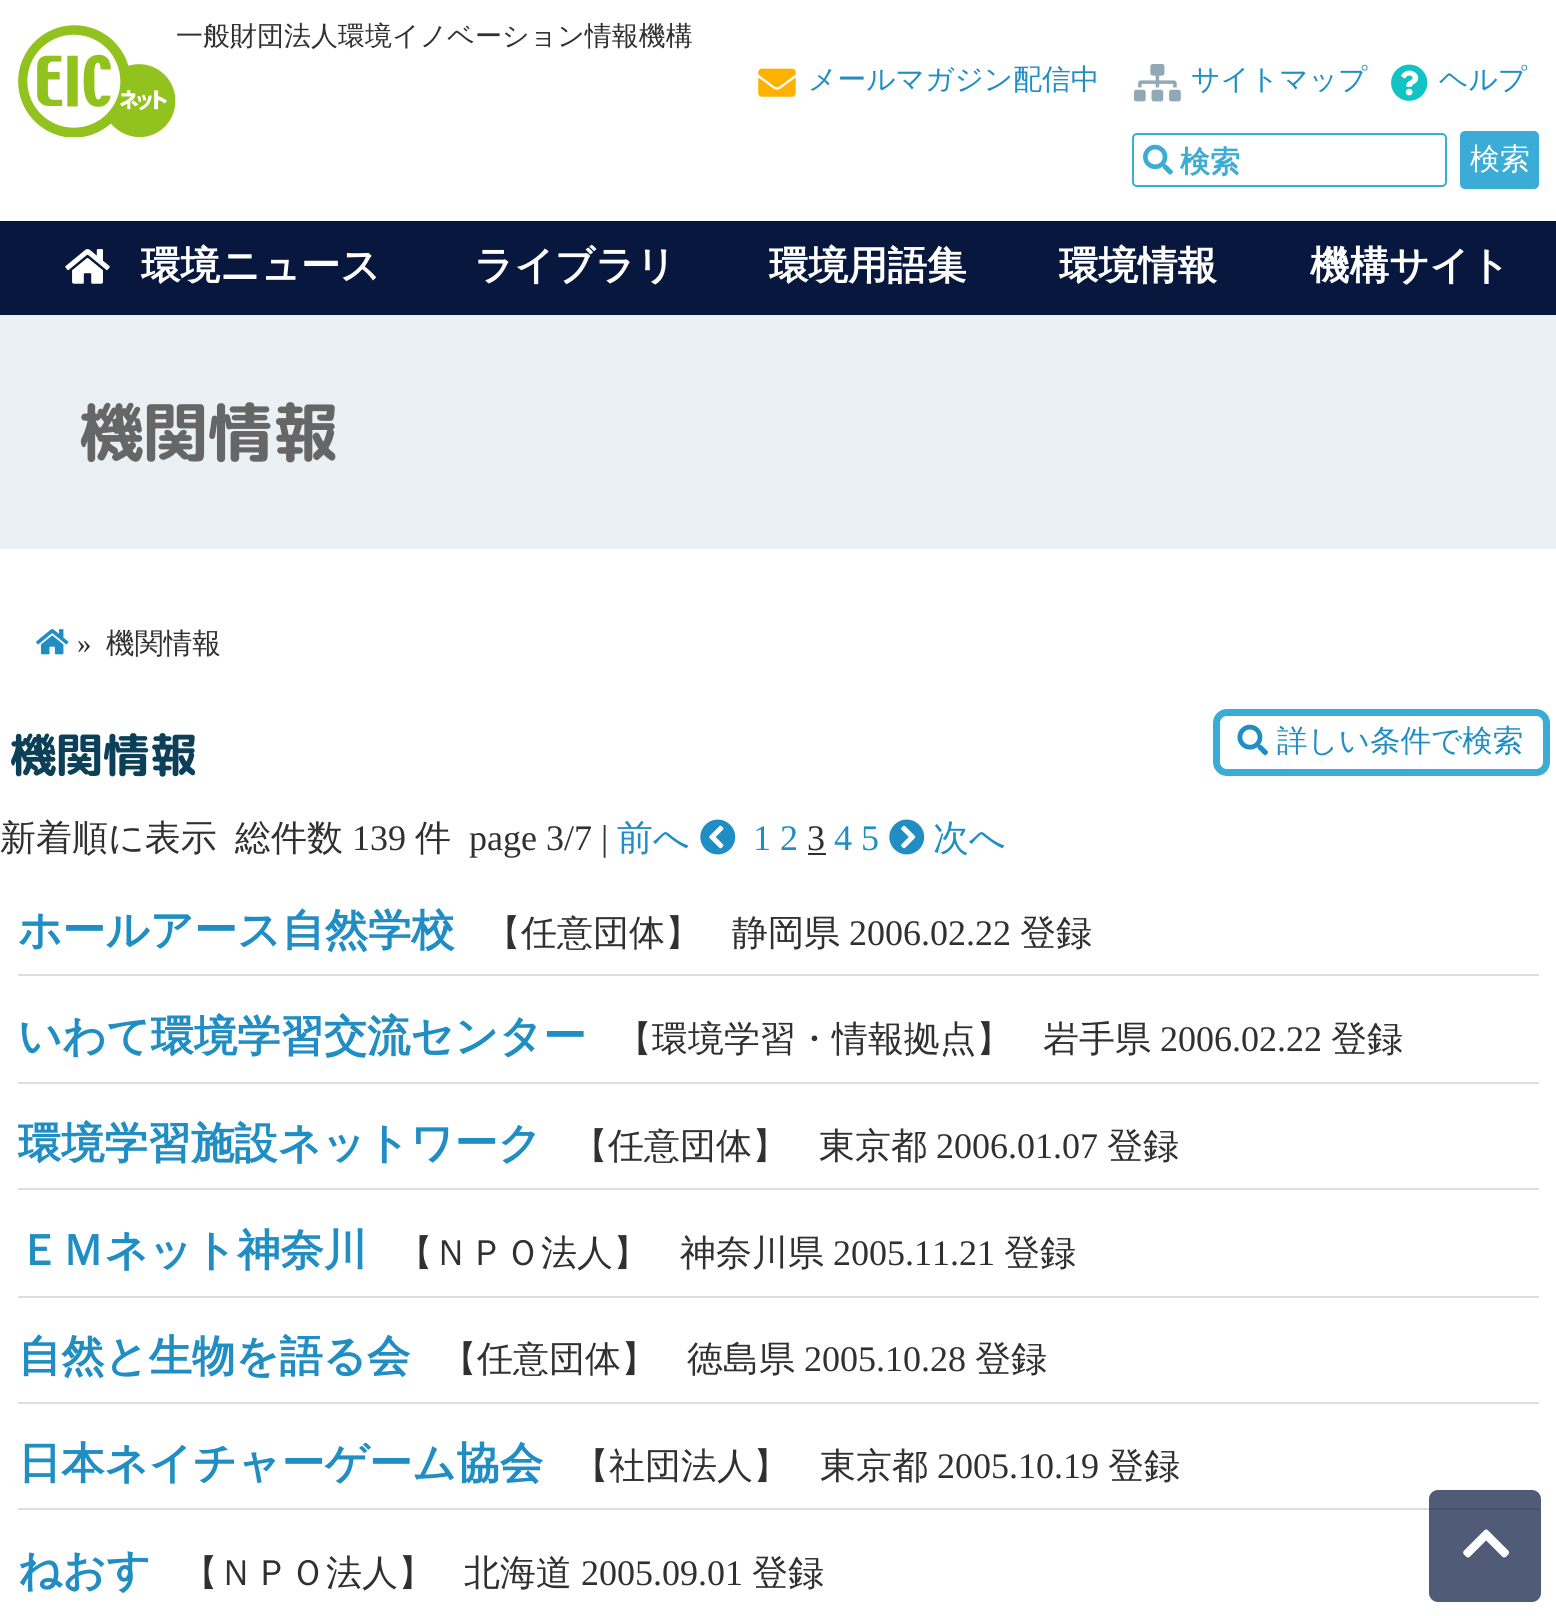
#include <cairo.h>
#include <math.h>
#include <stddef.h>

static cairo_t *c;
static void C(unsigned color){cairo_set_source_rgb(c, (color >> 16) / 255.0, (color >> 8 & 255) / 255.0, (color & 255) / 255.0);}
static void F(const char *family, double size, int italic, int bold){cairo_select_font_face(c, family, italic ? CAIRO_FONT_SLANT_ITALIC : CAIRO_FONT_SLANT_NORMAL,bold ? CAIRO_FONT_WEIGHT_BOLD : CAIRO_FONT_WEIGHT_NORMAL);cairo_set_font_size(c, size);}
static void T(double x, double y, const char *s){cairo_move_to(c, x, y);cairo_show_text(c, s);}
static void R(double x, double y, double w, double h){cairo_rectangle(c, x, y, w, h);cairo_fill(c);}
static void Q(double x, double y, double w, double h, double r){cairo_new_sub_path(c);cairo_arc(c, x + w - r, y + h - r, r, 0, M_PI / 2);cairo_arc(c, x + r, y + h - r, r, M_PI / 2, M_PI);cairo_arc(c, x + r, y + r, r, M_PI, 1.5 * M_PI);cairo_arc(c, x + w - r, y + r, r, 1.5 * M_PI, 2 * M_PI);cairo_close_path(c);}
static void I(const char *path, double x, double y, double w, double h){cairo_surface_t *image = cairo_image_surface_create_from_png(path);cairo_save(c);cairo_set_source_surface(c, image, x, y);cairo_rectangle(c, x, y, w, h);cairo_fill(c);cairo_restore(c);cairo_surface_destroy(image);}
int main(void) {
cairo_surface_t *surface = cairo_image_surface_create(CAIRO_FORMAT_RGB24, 1556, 1616);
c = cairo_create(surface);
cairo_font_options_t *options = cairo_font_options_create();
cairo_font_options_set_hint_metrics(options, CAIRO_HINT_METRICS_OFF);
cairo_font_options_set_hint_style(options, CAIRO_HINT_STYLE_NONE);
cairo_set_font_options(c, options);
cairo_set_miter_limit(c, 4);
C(0xffffff);
cairo_paint(c);
I("1.png",18,25,158,112);
F("WenQuanYi Zen Hei Medium",27,0,0);
C(0x303030);
T(176,45,"一般財団法人環境イノベーション情報機構");
I("2.png",758,68,38,29);
F("WenQuanYi Zen Hei Medium",28.75,0,0);
C(0x208dc3);
T(808,89,"メールマガジン配信中");
I("3.png",1134,64,47,38);
T(1191,89,"サイトマップ");
I("4.png",1391,64,37,37);
T(1439,89,"ヘルプ");
Q(1133,134,313,52,4);
C(0x3bacd6);
cairo_stroke(c);
I("5.png",1143,144,30,31);
F("WenQuanYi Zen Hei",30,0,1);
T(1180,172,"検索");
Q(1460,131,79,58,5);
cairo_fill(c);
F("WenQuanYi Zen Hei Medium",30,0,0);
C(0xffffff);
T(1470,169,"検索");
C(0x07173e);
R(0,221,1556,94);
I("6.png",65,249,45,35);
F("WenQuanYi Zen Hei",39.5,0,1);
C(0xffffff);
T(141,279,"環境ニュース");
T(474,279,"ライブラリ");
T(769,279,"環境用語集");
T(1059,279,"環境情報");
T(1310,279,"機構サイト");
C(0xeaf0f3);
R(0,315,1556,234);
F("Rounded Mplus 1c Bold",65,0,1);
C(0x666666);
T(78,456,"機関情報");
I("7.png",36,629,33,26);
F("Liberation Serif",28.75,0,0);
C(0x303030);
T(77,653,"»");
F("WenQuanYi Zen Hei Medium",28.75,0,0);
T(106,653,"機関情報");
F("Rounded Mplus 1c Bold",47,0,1);
C(0x0c3f58);
T(9,772,"機関情報");
Q(1216.5,712.5,330,60,10.5);
C(0x3bacd5);
cairo_set_line_width(c,7);
cairo_stroke(c);
I("8.png",1237,724,32,32);
F("WenQuanYi Zen Hei Medium",30.5,0,0);
C(0x208dc3);
T(1277,751,"詳しい条件で検索");
F("WenQuanYi Zen Hei Medium",36,0,0);
C(0x303030);
T(0,850,"新着順に表示");
T(235,850,"総件数");
F("Liberation Serif",36,0,0);
T(352,850,"139");
F("WenQuanYi Zen Hei Medium",36,0,0);
T(415,850,"件");
F("Liberation Serif",36,0,0);
T(469,850,"page 3/7 |");
F("WenQuanYi Zen Hei Medium",36,0,0);
C(0x208dc3);
T(617,850,"前へ");
I("9.png",700,819,36,36);
F("Liberation Serif",36,0,0);
T(753,850,"1 2");
C(0x303030);
T(807,850,"3");
R(808,853,18,2);
C(0x208dc3);
T(834,850,"4 5");
I("10.png",889,819,36,36);
F("WenQuanYi Zen Hei Medium",36,0,0);
T(933,850,"次へ");
C(0xdddddd);
R(18,974,1521,2);
F("WenQuanYi Zen Hei",43.25,0,1);
C(0x208dc3);
T(18,945,"ホールアース自然学校");
F("WenQuanYi Zen Hei Medium",36,0,0);
C(0x303030);
T(485,945,"【任意団体】");
T(732,945,"静岡県");
F("Liberation Serif",36,0,0);
T(849,945,"2006.02.22");
F("WenQuanYi Zen Hei Medium",36,0,0);
T(1020,945,"登録");
C(0xdddddd);
R(18,1082,1521,2);
F("WenQuanYi Zen Hei",43.25,0,1);
C(0x208dc3);
T(18,1051,"いわて環境学習交流センター");
F("WenQuanYi Zen Hei Medium",36,0,0);
C(0x303030);
T(616,1051,"【環境学習・情報拠点】");
T(1043,1051,"岩手県");
F("Liberation Serif",36,0,0);
T(1160,1051,"2006.02.22");
F("WenQuanYi Zen Hei Medium",36,0,0);
T(1331,1051,"登録");
C(0xdddddd);
R(18,1188,1521,2);
F("WenQuanYi Zen Hei",43.25,0,1);
C(0x208dc3);
T(18,1158,"環境学習施設ネットワーク");
F("WenQuanYi Zen Hei Medium",36,0,0);
C(0x303030);
T(572,1158,"【任意団体】");
T(819,1158,"東京都");
F("Liberation Serif",36,0,0);
T(936,1158,"2006.01.07");
F("WenQuanYi Zen Hei Medium",36,0,0);
T(1107,1158,"登録");
C(0xdddddd);
R(18,1296,1521,2);
F("WenQuanYi Zen Hei",43.25,0,1);
C(0x208dc3);
T(18,1265,"ＥＭネット神奈川");
F("WenQuanYi Zen Hei Medium",36,0,0);
C(0x303030);
T(397,1265,"【ＮＰＯ法人】");
T(680,1265,"神奈川県");
F("Liberation Serif",36,0,0);
T(833,1265,"2005.11.21");
F("WenQuanYi Zen Hei Medium",36,0,0);
T(1004,1265,"登録");
C(0xdddddd);
R(18,1402,1521,2);
F("WenQuanYi Zen Hei",43.25,0,1);
C(0x208dc3);
T(18,1371,"自然と生物を語る会");
F("WenQuanYi Zen Hei Medium",36,0,0);
C(0x303030);
T(441,1371,"【任意団体】");
T(687,1371,"徳島県");
F("Liberation Serif",36,0,0);
T(804,1371,"2005.10.28");
F("WenQuanYi Zen Hei Medium",36,0,0);
T(975,1371,"登録");
C(0xdddddd);
R(18,1508,1521,2);
F("WenQuanYi Zen Hei",43.25,0,1);
C(0x208dc3);
T(18,1478,"日本ネイチャーゲーム協会");
F("WenQuanYi Zen Hei Medium",36,0,0);
C(0x303030);
T(573,1478,"【社団法人】");
T(820,1478,"東京都");
F("Liberation Serif",36,0,0);
T(937,1478,"2005.10.19");
F("WenQuanYi Zen Hei Medium",36,0,0);
T(1108,1478,"登録");
F("WenQuanYi Zen Hei",43.25,0,1);
C(0x208dc3);
T(18,1585,"ねおす");
F("WenQuanYi Zen Hei Medium",36,0,0);
C(0x303030);
T(182,1585,"【ＮＰＯ法人】");
T(464,1585,"北海道");
F("Liberation Serif",36,0,0);
T(581,1585,"2005.09.01");
F("WenQuanYi Zen Hei Medium",36,0,0);
T(752,1585,"登録");
cairo_set_source_rgba(c,0.027,0.09,0.243,0.7);
Q(1429,1490,112,112,9);
cairo_fill(c);
I("11.png",1463,1529,47,29);
cairo_surface_write_to_png(surface, "o.png");
cairo_font_options_destroy(options);
cairo_destroy(c);
cairo_surface_destroy(surface);
return 0;
}
